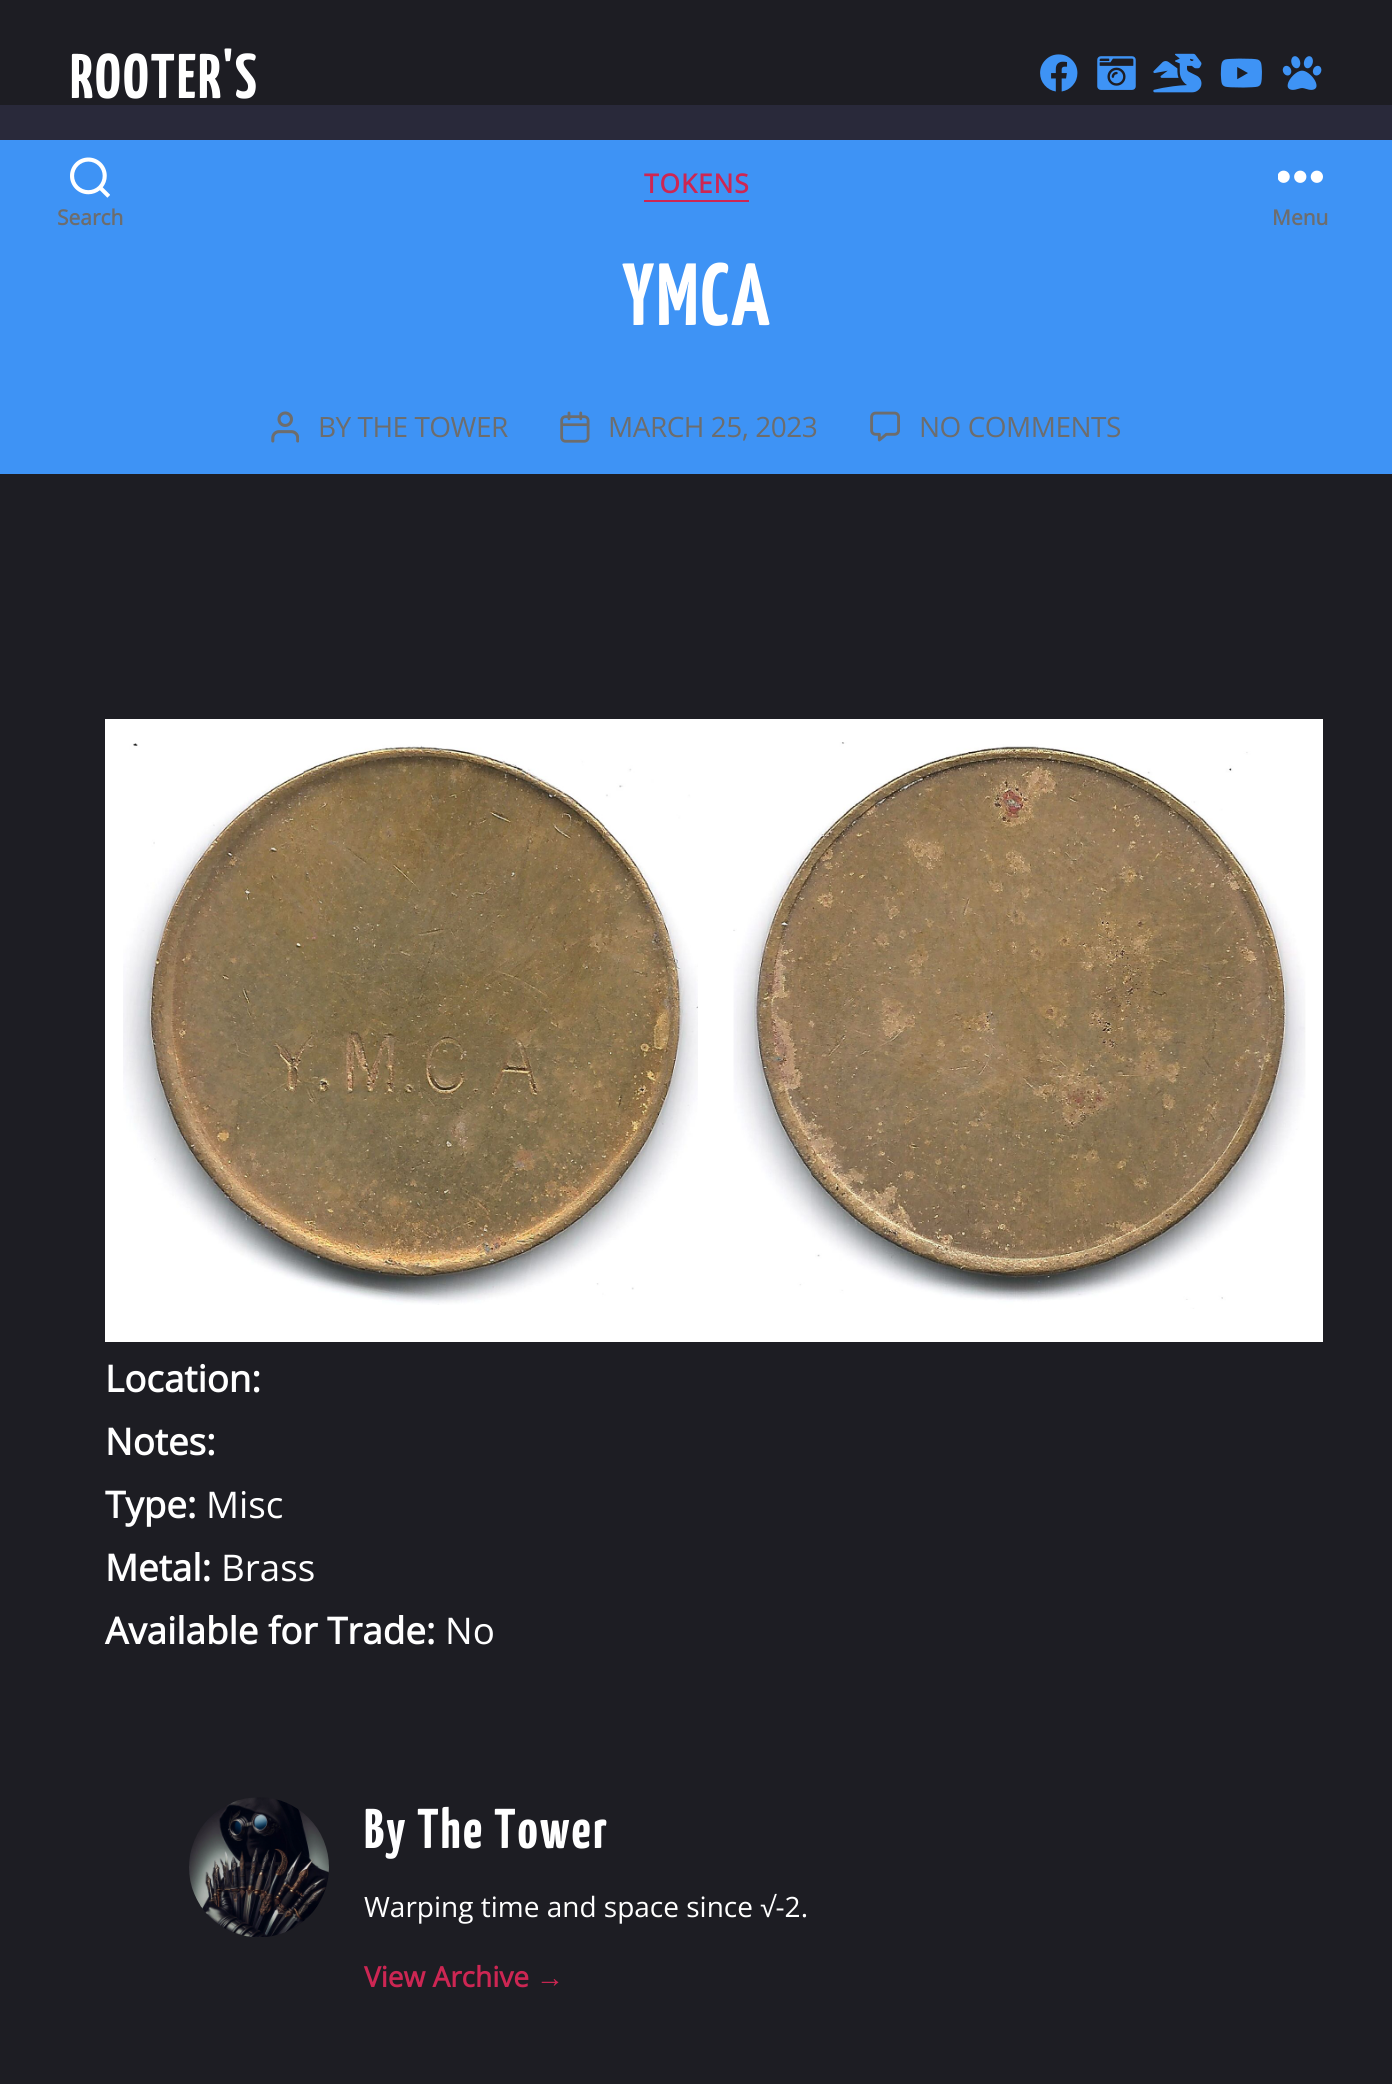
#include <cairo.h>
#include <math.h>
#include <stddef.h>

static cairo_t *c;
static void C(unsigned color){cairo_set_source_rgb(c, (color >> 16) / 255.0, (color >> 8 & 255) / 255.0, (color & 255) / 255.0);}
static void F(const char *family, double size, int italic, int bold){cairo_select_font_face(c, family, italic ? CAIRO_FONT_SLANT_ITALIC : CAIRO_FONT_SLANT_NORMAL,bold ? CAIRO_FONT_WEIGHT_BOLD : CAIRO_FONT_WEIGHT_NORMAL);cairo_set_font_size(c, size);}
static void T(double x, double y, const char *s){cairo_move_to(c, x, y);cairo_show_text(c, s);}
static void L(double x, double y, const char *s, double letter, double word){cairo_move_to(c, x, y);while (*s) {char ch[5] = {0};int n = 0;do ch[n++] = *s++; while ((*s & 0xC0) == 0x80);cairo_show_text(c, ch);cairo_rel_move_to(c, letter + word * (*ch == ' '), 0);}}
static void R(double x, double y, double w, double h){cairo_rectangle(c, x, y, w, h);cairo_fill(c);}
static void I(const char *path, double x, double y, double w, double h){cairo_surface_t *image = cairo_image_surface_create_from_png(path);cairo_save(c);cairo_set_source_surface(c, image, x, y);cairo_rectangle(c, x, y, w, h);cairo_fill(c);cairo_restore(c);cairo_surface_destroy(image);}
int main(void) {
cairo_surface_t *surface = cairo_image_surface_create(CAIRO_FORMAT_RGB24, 1392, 2084);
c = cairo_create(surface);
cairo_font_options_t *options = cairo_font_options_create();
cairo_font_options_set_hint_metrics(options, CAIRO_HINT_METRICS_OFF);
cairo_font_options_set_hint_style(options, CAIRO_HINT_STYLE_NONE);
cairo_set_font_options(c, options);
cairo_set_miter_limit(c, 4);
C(0x1d1d23);
cairo_paint(c);
F("Yanone Kaffeesatz",63,0,1);
C(0xffffff);
L(70,98,"ROOTER'S",2.1,0);
I("1.png",1040,54,38,38);
I("2.png",1097,56,39,34);
I("3.png",1153,53,49,40);
I("4.png",1220,58,42,30);
I("5.png",1282,56,40,34);
C(0x29293a);
R(0,105,1392,35);
C(0x3e93f5);
R(0,140,1392,334);
I("6.png",70,157,40,41);
F("Open Sans",21,0,1);
C(0x6d6d6d);
T(57,225,"Search");
I("7.png",1278,170,45,13);
T(1272,225,"Menu");
C(0xcd2653);
R(644,200,105,2);
F("Open Sans",26.25,0,1);
L(644,193,"TOKENS",1,0);
F("Yanone Kaffeesatz",88,0,1);
C(0xffffff);
L(622,325,"YMCA",2.1,0);
I("8.png",271,411,28,32);
F("Open Sans",28,0,0);
C(0x6d6d6d);
L(318,437,"BY THE TOWER",-.5,0);
I("9.png",560,411,30,32);
L(608,437,"MARCH 25, 2023",-.5,0);
I("10.png",870,411,30,31);
L(919,437,"NO COMMENTS",-.5,0);
C(0xffffff);
R(105,719,1218,623);
I("11.png",123,743,575,562);
I("12.png",733,742,573,567);
F("Open Sans",36.75,0,1);
T(105,1392,"Location:");
T(105,1455,"Notes:");
T(105,1518,"Type:");
F("Open Sans",36.75,0,0);
T(206,1518,"Misc");
F("Open Sans",36.75,0,1);
T(105,1581,"Metal:");
F("Open Sans",36.75,0,0);
T(221,1581,"Brass");
F("Open Sans",36.75,0,1);
T(105,1644,"Available for Trade:");
F("Open Sans",36.75,0,0);
T(445,1644,"No");
I("13.png",189,1797,140,140);
F("Yanone Kaffeesatz",56,0,1);
L(364,1848,"By The Tower",2.1,0);
F("Open Sans",28,0,0);
T(364,1917,"Warping time and space since √-2.");
F("Open Sans",28,0,1);
C(0xcd2653);
T(364,1987,"View Archive");
F("Liberation Sans",28,0,1);
T(536,1987,"→");
cairo_surface_write_to_png(surface, "o.png");
cairo_font_options_destroy(options);
cairo_destroy(c);
cairo_surface_destroy(surface);
return 0;
}
